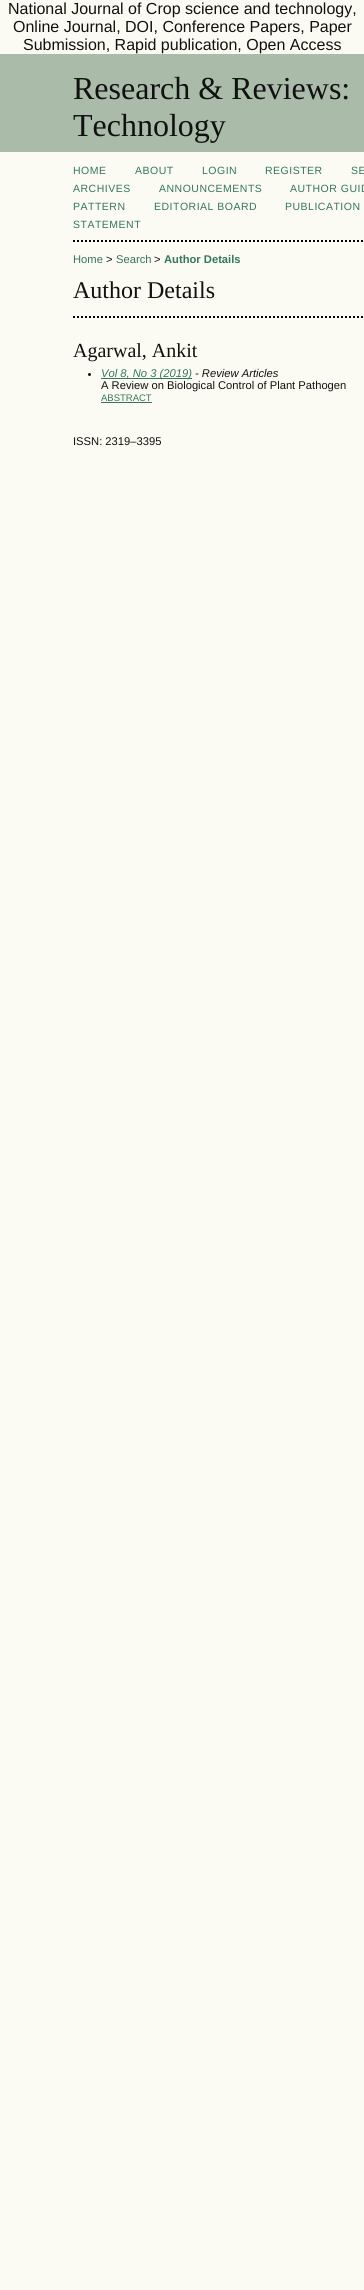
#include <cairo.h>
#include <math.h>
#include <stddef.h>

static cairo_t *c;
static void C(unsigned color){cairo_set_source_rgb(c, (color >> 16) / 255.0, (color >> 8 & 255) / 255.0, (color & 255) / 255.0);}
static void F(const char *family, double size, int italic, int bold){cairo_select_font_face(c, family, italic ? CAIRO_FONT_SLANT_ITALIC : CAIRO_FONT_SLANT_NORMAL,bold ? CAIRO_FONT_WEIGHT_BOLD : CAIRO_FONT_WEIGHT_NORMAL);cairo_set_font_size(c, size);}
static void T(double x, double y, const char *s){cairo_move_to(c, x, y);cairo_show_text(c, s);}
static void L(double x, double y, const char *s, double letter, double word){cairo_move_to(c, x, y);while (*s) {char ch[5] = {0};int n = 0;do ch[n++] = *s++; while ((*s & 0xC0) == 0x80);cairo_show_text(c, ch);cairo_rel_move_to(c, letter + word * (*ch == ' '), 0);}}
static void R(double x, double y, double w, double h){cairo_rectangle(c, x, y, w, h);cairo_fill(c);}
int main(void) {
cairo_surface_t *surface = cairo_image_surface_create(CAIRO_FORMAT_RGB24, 364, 2290);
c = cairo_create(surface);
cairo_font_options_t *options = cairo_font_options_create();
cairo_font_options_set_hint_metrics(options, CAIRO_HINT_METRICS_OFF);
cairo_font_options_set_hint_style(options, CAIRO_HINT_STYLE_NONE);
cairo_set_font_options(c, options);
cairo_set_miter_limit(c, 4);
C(0xfbfbf3);
cairo_paint(c);
F("Liberation Sans",16,0,0);
C(0x111111);
T(8,14,"National Journal of Crop science and technology,");
T(13,32,"Online Journal, DOI, Conference Papers, Paper");
T(23,50,"Submission, Rapid publication, Open Access");
C(0xaabbaa);
R(0,54,364,98);
F("Liberation Serif",32,0,0);
C(0x111111);
T(73,99,"Research & Reviews:");
T(73,136,"Technology");
cairo_new_path(c);
cairo_move_to(c,73,241);
cairo_line_to(c,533,241);
C(0x000000);
cairo_set_dash(c,(double[]){2,2},2,0);
cairo_stroke(c);
F("Liberation Sans",10.5,0,0);
C(0x337755);
L(73,174,"HOME",.5,0);
L(135,174,"ABOUT",.5,0);
L(202,174,"LOGIN",.5,0);
L(265,174,"REGISTER",.5,0);
L(351,174,"SE",.5,0);
L(73,192,"ARCHIVES",.5,0);
L(159,192,"ANNOUNCEMENTS",.5,0);
L(290,192,"AUTHOR GUID",.5,0);
L(73,210,"PATTERN",.5,0);
L(154,210,"EDITORIAL BOARD",.5,0);
L(285,210,"PUBLICATION",.5,0);
L(73,228,"STATEMENT",.5,0);
F("Liberation Sans",11.2,0,0);
T(73,263,"Home");
C(0x111111);
T(106,263,">");
C(0x337755);
T(116,263,"Search");
C(0x111111);
T(154,263,">");
F("Liberation Sans",11.2,0,1);
C(0x337755);
T(164,263,"Author Details");
F("Liberation Serif",24,0,0);
C(0x111111);
T(73,298,"Author Details");
cairo_new_path(c);
cairo_move_to(c,73,317);
cairo_line_to(c,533,317);
C(0x000000);
cairo_stroke(c);
F("Liberation Serif",20,0,0);
C(0x111111);
T(73,357,"Agarwal, Ankit");
cairo_new_path(c);
cairo_arc(c,89.5,374.5,1.5,0,2 * M_PI);
cairo_fill(c);
C(0x337755);
R(101,378,91,1);
F("Liberation Sans",11.2,1,0);
T(101,377,"Vol 8, No 3 (2019)");
C(0x111111);
T(195,377,"- Review Articles");
F("Liberation Sans",11.2,0,0);
T(101,389,"A Review on Biological Control of Plant Pathogen");
F("Liberation Sans",9.5,0,0);
C(0x337755);
T(101,401,"ABSTRACT");
R(101,402,51,1);
F("Liberation Sans",11.2,0,0);
C(0x111111);
T(73,445,"ISSN: 2319–3395");
cairo_surface_write_to_png(surface, "o.png");
cairo_font_options_destroy(options);
cairo_destroy(c);
cairo_surface_destroy(surface);
return 0;
}
